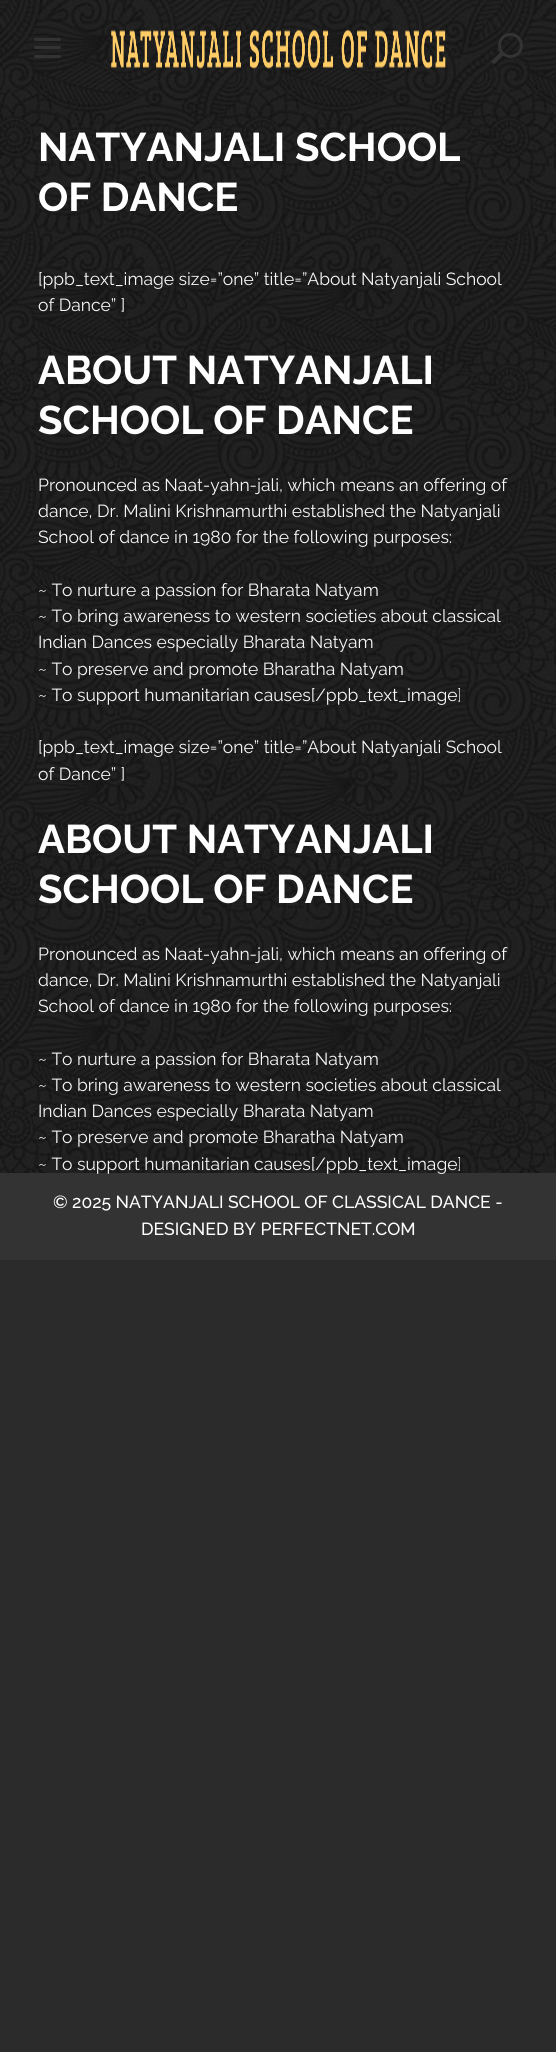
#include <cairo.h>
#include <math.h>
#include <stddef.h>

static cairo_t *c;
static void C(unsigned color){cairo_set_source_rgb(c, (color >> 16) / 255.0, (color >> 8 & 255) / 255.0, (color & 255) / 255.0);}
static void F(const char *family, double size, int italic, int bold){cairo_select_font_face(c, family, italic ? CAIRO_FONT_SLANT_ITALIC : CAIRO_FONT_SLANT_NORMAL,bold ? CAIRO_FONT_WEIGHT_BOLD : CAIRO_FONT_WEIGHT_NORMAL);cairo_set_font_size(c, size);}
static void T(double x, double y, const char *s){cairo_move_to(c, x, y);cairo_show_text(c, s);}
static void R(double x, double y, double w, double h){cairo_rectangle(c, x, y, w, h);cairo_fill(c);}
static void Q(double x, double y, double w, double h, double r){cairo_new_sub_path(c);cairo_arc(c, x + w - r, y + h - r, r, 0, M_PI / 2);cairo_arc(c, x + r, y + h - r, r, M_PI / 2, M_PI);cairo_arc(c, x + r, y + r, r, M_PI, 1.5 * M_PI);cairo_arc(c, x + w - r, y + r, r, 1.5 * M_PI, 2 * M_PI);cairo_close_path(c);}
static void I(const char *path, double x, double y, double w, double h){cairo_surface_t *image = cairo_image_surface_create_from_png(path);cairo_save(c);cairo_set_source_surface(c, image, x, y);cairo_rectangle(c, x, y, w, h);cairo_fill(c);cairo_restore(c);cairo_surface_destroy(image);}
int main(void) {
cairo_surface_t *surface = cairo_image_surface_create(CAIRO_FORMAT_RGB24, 556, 2052);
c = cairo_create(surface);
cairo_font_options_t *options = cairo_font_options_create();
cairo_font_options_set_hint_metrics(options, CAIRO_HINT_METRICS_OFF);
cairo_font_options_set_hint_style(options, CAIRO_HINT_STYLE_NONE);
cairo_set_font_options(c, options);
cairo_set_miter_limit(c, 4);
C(0x2b2b2b);
cairo_paint(c);
I("1.png",0,95,556,1078);
I("2.png",0,0,556,95);
C(0x333333);
Q(34,46,27,3,1.5);
cairo_fill(c);
Q(34,38,27,3,1.5);
cairo_fill(c);
Q(34,55,27,3,1.5);
cairo_fill(c);
I("3.png",111,29,335,40);
cairo_arc(c,510.5,45.5,11,0,2 * M_PI);
cairo_set_line_width(c,3);
cairo_stroke(c);
cairo_new_path(c);
cairo_move_to(c,491,61.5);
cairo_line_to(c,501.5,51);
cairo_line_to(c,504.5,54);
cairo_line_to(c,494,64.5);
cairo_close_path(c);
cairo_fill(c);
F("Raleway",40,0,1);
C(0xffffff);
T(38,161,"NATYANJALI SCHOOL");
T(38,211,"OF DANCE");
F("Raleway",17.5,0,0);
C(0xf7f7f7);
T(38,285,"[ppb_text_image size=”one” title=”About Natyanjali School");
T(38,311,"of Dance” ]");
F("Raleway",40,0,1);
C(0xffffff);
T(38,384,"ABOUT NATYANJALI");
T(38,434,"SCHOOL OF DANCE");
F("Raleway",17.5,0,0);
C(0xf7f7f7);
T(38,491,"Pronounced as Naat-yahn-jali, which means an offering of");
T(38,517,"dance, Dr. Malini Krishnamurthi established the Natyanjali");
T(38,543,"School of dance in 1980 for the following purposes:");
T(38,596,"~ To nurture a passion for Bharata Natyam");
T(38,622,"~ To bring awareness to western societies about classical");
T(38,648,"Indian Dances especially Bharata Natyam");
T(38,675,"~ To preserve and promote Bharatha Natyam");
T(38,701,"~ To support humanitarian causes[/ppb_text_image]");
T(38,753,"[ppb_text_image size=”one” title=”About Natyanjali School");
T(38,780,"of Dance” ]");
F("Raleway",40,0,1);
C(0xffffff);
T(38,853,"ABOUT NATYANJALI");
T(38,903,"SCHOOL OF DANCE");
F("Raleway",17.5,0,0);
C(0xf7f7f7);
T(38,960,"Pronounced as Naat-yahn-jali, which means an offering of");
T(38,986,"dance, Dr. Malini Krishnamurthi established the Natyanjali");
T(38,1012,"School of dance in 1980 for the following purposes:");
T(38,1065,"~ To nurture a passion for Bharata Natyam");
T(38,1091,"~ To bring awareness to western societies about classical");
T(38,1117,"Indian Dances especially Bharata Natyam");
T(38,1143,"~ To preserve and promote Bharatha Natyam");
C(0x333333);
R(0,1173,556,87);
C(0xf7f7f7);
T(38,1170,"~ To support humanitarian causes[/ppb_text_image]");
F("Raleway Medium",17.5,0,0);
C(0xffffff);
T(53,1208,"© 2025 NATYANJALI SCHOOL OF CLASSICAL DANCE -");
T(141,1235,"DESIGNED BY PERFECTNET.COM");
cairo_surface_write_to_png(surface, "o.png");
cairo_font_options_destroy(options);
cairo_destroy(c);
cairo_surface_destroy(surface);
return 0;
}
